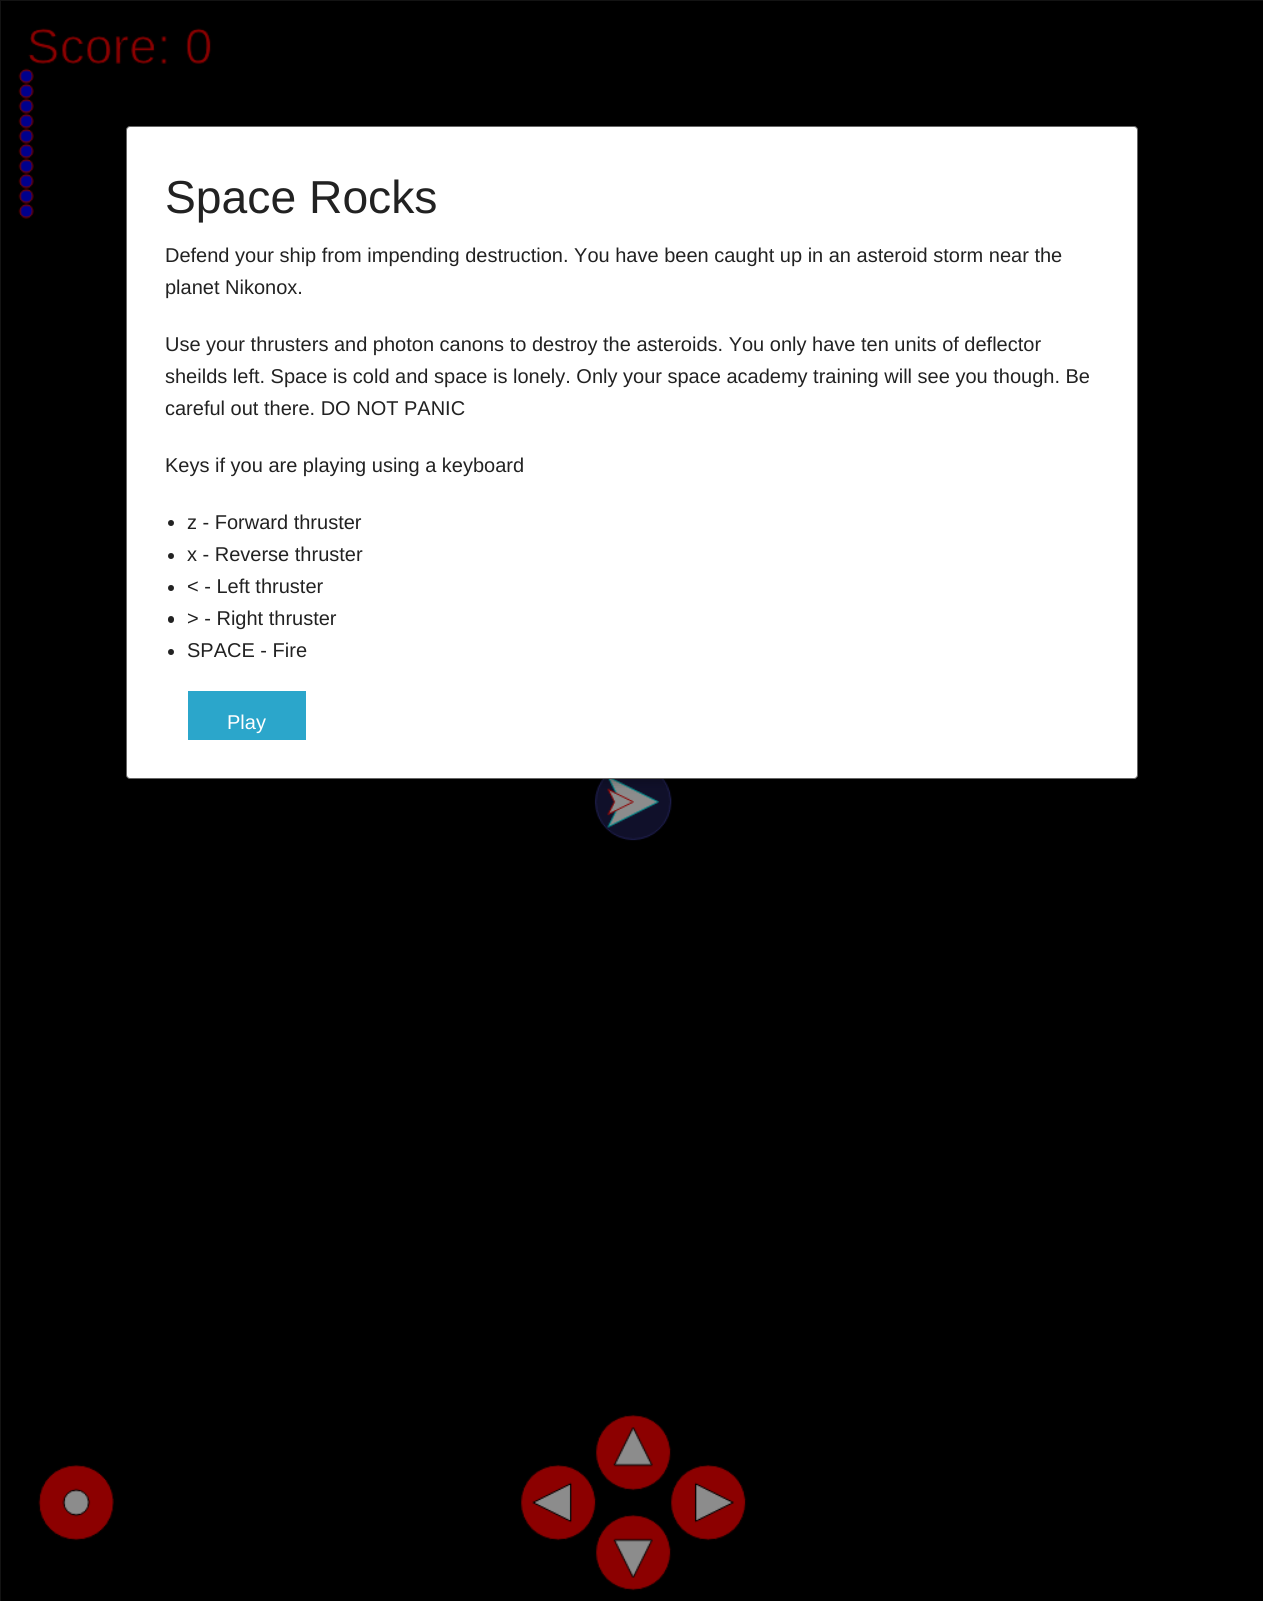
#include <cairo.h>
#include <math.h>
#include <stddef.h>

static cairo_t *c;
static void C(unsigned color){cairo_set_source_rgb(c, (color >> 16) / 255.0, (color >> 8 & 255) / 255.0, (color & 255) / 255.0);}
static void F(const char *family, double size, int italic, int bold){cairo_select_font_face(c, family, italic ? CAIRO_FONT_SLANT_ITALIC : CAIRO_FONT_SLANT_NORMAL,bold ? CAIRO_FONT_WEIGHT_BOLD : CAIRO_FONT_WEIGHT_NORMAL);cairo_set_font_size(c, size);}
static void T(double x, double y, const char *s){cairo_move_to(c, x, y);cairo_show_text(c, s);}
static void R(double x, double y, double w, double h){cairo_rectangle(c, x, y, w, h);cairo_fill(c);}
static void Q(double x, double y, double w, double h, double r){cairo_new_sub_path(c);cairo_arc(c, x + w - r, y + h - r, r, 0, M_PI / 2);cairo_arc(c, x + r, y + h - r, r, M_PI / 2, M_PI);cairo_arc(c, x + r, y + r, r, M_PI, 1.5 * M_PI);cairo_arc(c, x + w - r, y + r, r, 1.5 * M_PI, 2 * M_PI);cairo_close_path(c);}
static void S(double x, double y, double w, double h, double r, double blur, double alpha){cairo_push_group_with_content(c, CAIRO_CONTENT_ALPHA);cairo_set_operator(c, CAIRO_OPERATOR_SOURCE);for (int i = 15; i >= -15 && fmin(w, h) + blur * i / 3 > 0; i -= 2) {double e = blur * i / 6;cairo_set_source_rgba(c, 0, 0, 0, alpha * erfc((i - 1) / 8.5) / 2);Q(x - e, y - e, w + 2 * e, h + 2 * e, fmax(0, fmin(r + e + blur * .6, fmin(w, h) / 2 + e)));cairo_fill(c);}cairo_pattern_t *soft = cairo_pop_group(c);cairo_mask(c, soft);cairo_pattern_destroy(soft);}
static void I(const char *path, double x, double y, double w, double h){cairo_surface_t *image = cairo_image_surface_create_from_png(path);cairo_save(c);cairo_set_source_surface(c, image, x, y);cairo_rectangle(c, x, y, w, h);cairo_fill(c);cairo_restore(c);cairo_surface_destroy(image);}
int main(void) {
cairo_surface_t *surface = cairo_image_surface_create(CAIRO_FORMAT_RGB24, 1263, 1601);
c = cairo_create(surface);
cairo_font_options_t *options = cairo_font_options_create();
cairo_font_options_set_hint_metrics(options, CAIRO_HINT_METRICS_OFF);
cairo_font_options_set_hint_style(options, CAIRO_HINT_STYLE_NONE);
cairo_set_font_options(c, options);
cairo_set_miter_limit(c, 4);
C(0x000000);
cairo_paint(c);
cairo_rectangle(c,.5,.5,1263,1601);
C(0x131313);
cairo_set_line_width(c,1);
cairo_stroke(c);
I("1.png",18,28,729,1563);
C(0x000000);
S(126,126,1012,653,4,6,.4);
C(0xffffff);
Q(126.5,126.5,1011,652,3.5);
cairo_fill_preserve(c);
C(0x666666);
cairo_stroke(c);
F("Liberation Sans",46.25,0,0);
C(0x222222);
T(165,213,"Space Rocks");
F("Liberation Sans",20,0,0);
T(165,262,"Defend your ship from impending destruction. You have been caught up in an asteroid storm near the");
T(165,294,"planet Nikonox.");
T(165,351,"Use your thrusters and photon canons to destroy the asteroids. You only have ten units of deflector");
T(165,383,"sheilds left. Space is cold and space is lonely. Only your space academy training will see you though. Be");
T(165,415,"careful out there. DO NOT PANIC");
T(165,472,"Keys if you are playing using a keyboard");
cairo_new_path(c);
cairo_arc(c,171,523,3,0,2 * M_PI);
cairo_fill(c);
T(187,529,"z - Forward thruster");
cairo_new_path(c);
cairo_arc(c,171,556,3,0,2 * M_PI);
cairo_fill(c);
T(187,561,"x - Reverse thruster");
cairo_new_path(c);
cairo_arc(c,171,588,3,0,2 * M_PI);
cairo_fill(c);
T(187,593,"< - Left thruster");
Q(168,616,6,7,3);
cairo_fill(c);
T(187,625,"> - Right thruster");
cairo_new_path(c);
cairo_arc(c,171,652,3,0,2 * M_PI);
cairo_fill(c);
T(187,657,"SPACE - Fire");
C(0x2ba6cb);
R(188,691,118,49);
C(0xffffff);
T(227,729,"Play");
cairo_surface_write_to_png(surface, "o.png");
cairo_font_options_destroy(options);
cairo_destroy(c);
cairo_surface_destroy(surface);
return 0;
}
